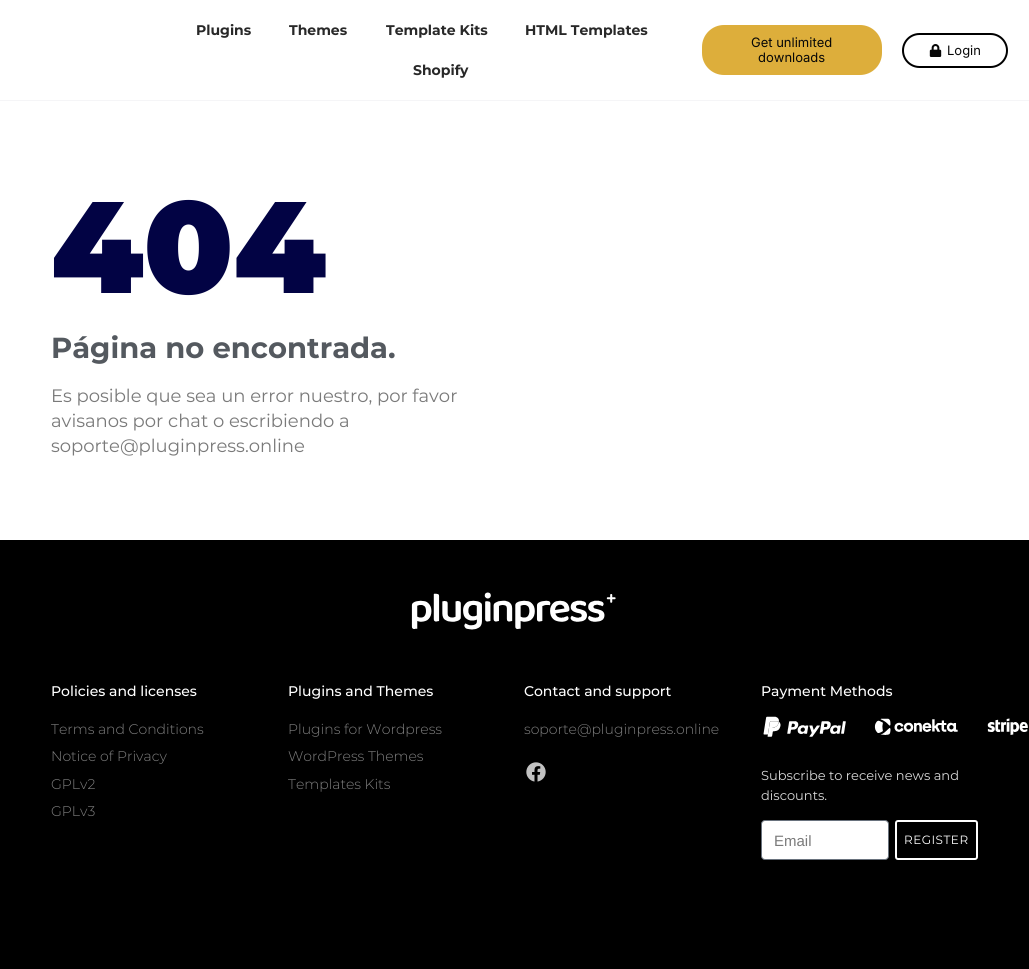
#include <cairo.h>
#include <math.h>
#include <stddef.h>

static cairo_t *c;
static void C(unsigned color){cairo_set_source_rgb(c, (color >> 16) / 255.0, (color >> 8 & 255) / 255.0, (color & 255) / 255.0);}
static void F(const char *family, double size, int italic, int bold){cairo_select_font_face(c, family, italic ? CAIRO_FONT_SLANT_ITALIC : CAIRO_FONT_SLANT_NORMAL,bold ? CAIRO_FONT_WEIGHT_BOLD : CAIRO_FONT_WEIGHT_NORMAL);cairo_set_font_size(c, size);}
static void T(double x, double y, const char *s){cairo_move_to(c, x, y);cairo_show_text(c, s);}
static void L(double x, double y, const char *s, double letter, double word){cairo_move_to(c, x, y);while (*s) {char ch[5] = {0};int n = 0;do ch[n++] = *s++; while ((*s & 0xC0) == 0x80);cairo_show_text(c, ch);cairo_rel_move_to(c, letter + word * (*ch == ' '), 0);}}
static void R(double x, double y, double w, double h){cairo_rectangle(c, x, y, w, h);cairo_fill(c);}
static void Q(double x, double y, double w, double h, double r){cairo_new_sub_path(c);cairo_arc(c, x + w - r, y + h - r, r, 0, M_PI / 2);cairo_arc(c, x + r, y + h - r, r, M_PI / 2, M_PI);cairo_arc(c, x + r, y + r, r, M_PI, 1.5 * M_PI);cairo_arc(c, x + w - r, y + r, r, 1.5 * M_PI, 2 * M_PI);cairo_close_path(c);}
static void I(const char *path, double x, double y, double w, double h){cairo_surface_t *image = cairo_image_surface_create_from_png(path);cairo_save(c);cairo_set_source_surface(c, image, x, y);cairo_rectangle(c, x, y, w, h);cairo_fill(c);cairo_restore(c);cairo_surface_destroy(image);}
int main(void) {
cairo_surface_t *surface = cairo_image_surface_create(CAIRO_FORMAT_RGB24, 1029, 969);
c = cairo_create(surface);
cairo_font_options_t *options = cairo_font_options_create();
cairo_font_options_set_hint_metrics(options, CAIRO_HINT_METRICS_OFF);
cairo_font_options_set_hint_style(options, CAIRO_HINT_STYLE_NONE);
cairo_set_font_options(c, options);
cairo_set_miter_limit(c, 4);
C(0xffffff);
cairo_paint(c);
C(0xf5f5f7);
R(0,100,1029,1);
F("Montserrat",14,0,1);
C(0x282828);
T(196,35,"Plugins");
T(289,35,"Themes");
T(386,35,"Template Kits");
T(525,35,"HTML Templates");
T(413,75,"Shopify");
C(0xddae3b);
Q(703,26,178,48,21);
cairo_fill_preserve(c);
cairo_stroke(c);
F("Inter",13,0,0);
C(0x070707);
T(751,47,"Get unlimited");
T(758,62,"downloads");
Q(903,34,104,33,16.5);
C(0x000000);
cairo_stroke(c);
I("1.png",929,44,13,13);
C(0x070707);
T(947,55,"Login");
F("Montserrat Black",130,0,0);
C(0x020344);
T(51,293,"404");
F("Montserrat",29,0,1);
C(0x54595f);
T(51,358,"Página no encontrada.");
F("Montserrat",18,0,0);
C(0x7a7a7a);
T(51,402,"Es posible que sea un error nuestro, por favor");
T(51,427,"avisanos por chat o escribiendo a");
T(51,452,"soporte@pluginpress.online");
C(0x000000);
R(0,540,1029,429);
I("2.png",411,592,205,38);
F("Montserrat Medium",14,0,0);
C(0xffffff);
T(51,696,"Policies and licenses");
F("Montserrat Light",14,0,0);
C(0x808080);
T(51,734,"Terms and Conditions");
T(51,761,"Notice of Privacy");
T(51,789,"GPLv2");
T(51,816,"GPLv3");
F("Montserrat Medium",14,0,0);
C(0xffffff);
T(288,696,"Plugins and Themes");
F("Montserrat Light",14,0,0);
C(0x808080);
T(288,734,"Plugins for Wordpress");
T(288,761,"WordPress Themes");
T(288,789,"Templates Kits");
F("Montserrat Medium",14,0,0);
C(0xffffff);
T(524,696,"Contact and support");
F("Montserrat Light",14,0,0);
C(0x808080);
T(524,734,"soporte@pluginpress.online");
I("3.png",526,762,20,20);
F("Montserrat Medium",14,0,0);
C(0xffffff);
T(761,696,"Payment Methods");
I("4.png",763,716,265,21);
F("Montserrat",13,0,0);
C(0xd8d8d8);
T(761,780,"Subscribe to receive news and");
T(761,800,"discounts.");
C(0xffffff);
Q(761.5,820.5,127,39,3.5);
cairo_fill_preserve(c);
C(0x69727d);
cairo_set_line_width(c,1);
cairo_stroke(c);
F("Liberation Sans",15,0,0);
C(0x7a7a7a);
T(774,846,"Email");
Q(896,821,81,38,2);
C(0xffffff);
cairo_set_line_width(c,2);
cairo_stroke(c);
F("Montserrat",12,0,0);
L(904,844,"REGISTER",.5,0);
cairo_surface_write_to_png(surface, "o.png");
cairo_font_options_destroy(options);
cairo_destroy(c);
cairo_surface_destroy(surface);
return 0;
}
